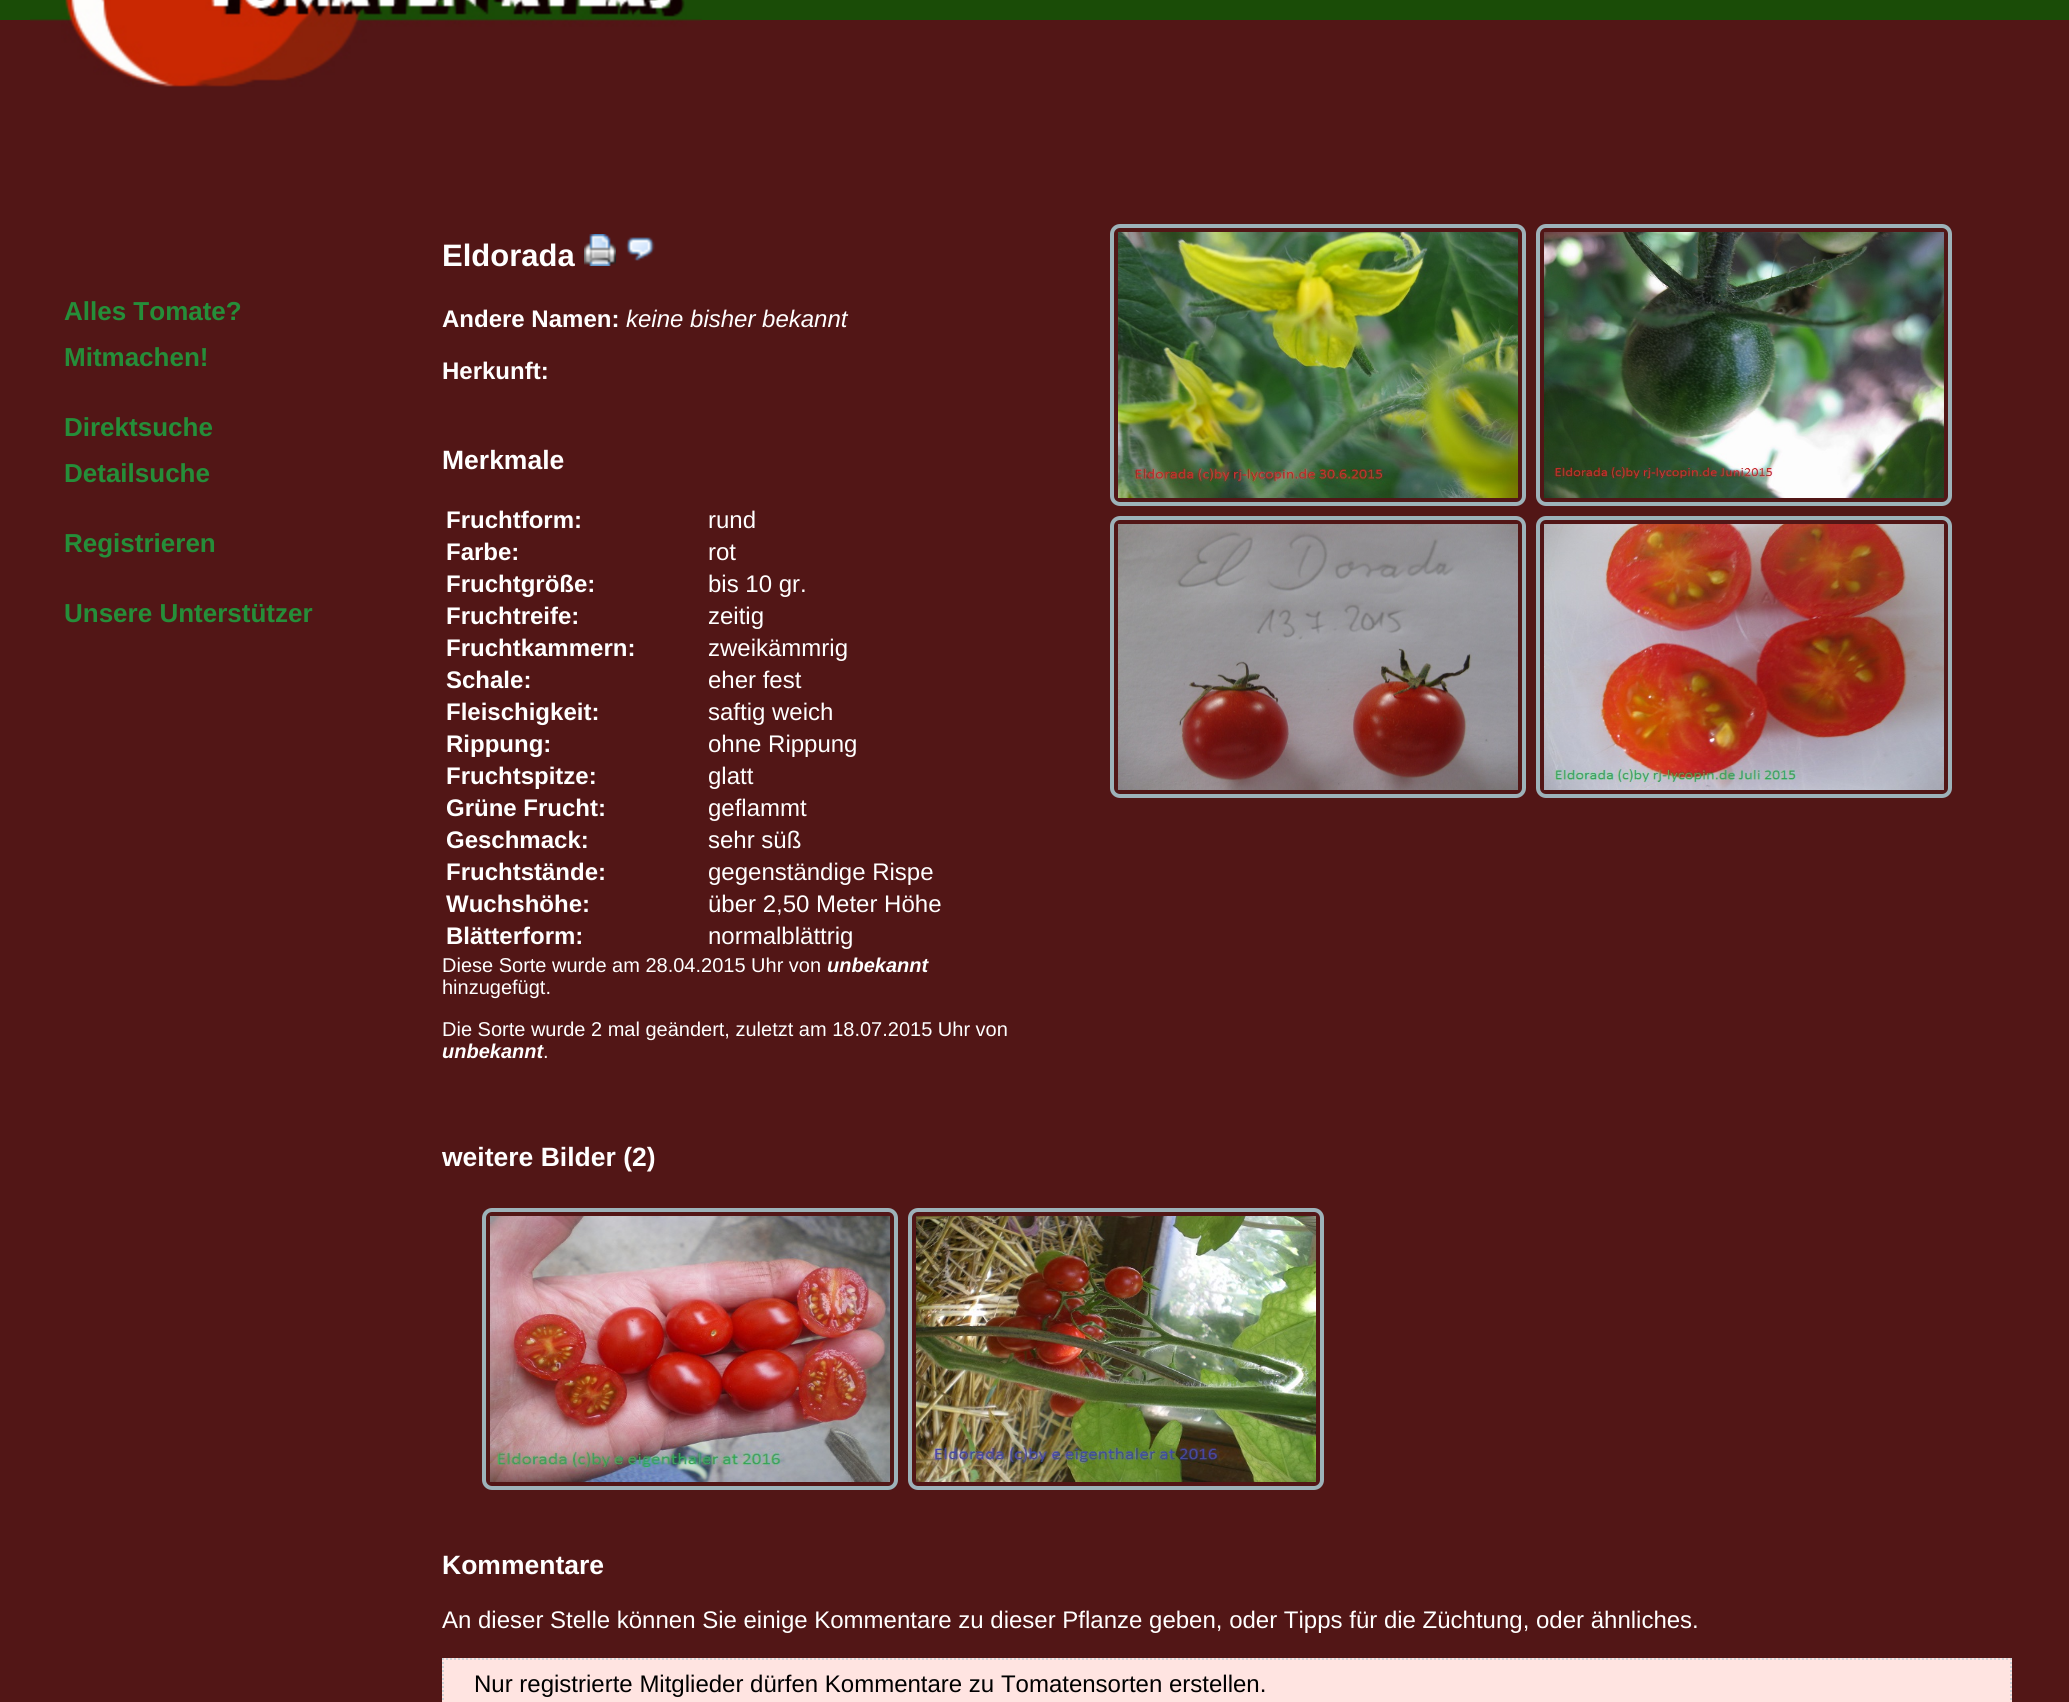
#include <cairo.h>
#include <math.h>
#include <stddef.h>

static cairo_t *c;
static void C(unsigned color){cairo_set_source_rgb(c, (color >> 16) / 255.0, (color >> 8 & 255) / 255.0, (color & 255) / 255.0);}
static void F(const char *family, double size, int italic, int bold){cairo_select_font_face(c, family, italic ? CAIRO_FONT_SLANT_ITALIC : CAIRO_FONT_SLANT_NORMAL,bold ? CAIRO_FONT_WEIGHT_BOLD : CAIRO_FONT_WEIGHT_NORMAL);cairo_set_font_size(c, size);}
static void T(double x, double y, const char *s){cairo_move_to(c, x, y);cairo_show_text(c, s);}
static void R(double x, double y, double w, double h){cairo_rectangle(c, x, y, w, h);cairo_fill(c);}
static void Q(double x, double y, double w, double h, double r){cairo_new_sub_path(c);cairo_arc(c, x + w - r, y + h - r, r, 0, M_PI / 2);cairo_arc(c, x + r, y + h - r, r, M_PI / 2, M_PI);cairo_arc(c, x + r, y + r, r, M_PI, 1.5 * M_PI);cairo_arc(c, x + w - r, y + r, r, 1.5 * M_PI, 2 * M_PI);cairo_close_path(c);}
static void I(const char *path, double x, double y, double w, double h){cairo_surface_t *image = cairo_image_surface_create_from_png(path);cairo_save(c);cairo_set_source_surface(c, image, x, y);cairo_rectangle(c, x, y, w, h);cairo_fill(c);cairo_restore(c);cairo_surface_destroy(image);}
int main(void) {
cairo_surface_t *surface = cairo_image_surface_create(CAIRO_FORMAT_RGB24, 2069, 1702);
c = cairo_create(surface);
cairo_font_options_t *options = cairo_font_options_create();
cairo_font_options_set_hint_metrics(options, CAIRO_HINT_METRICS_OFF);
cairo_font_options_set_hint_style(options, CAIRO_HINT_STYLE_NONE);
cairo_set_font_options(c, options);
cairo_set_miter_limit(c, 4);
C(0x521616);
cairo_paint(c);
C(0x1a4c07);
R(0,0,2069,20);
I("1.png",30,0,672,87);
F("Liberation Sans",26,0,1);
C(0x258e39);
T(64,320,"Alles Tomate?");
T(64,366,"Mitmachen!");
T(64,436,"Direktsuche");
T(64,482,"Detailsuche");
T(64,552,"Registrieren");
T(64,622,"Unsere Unterstützer");
F("Liberation Sans",31,0,1);
C(0xffffff);
T(442,266,"Eldorada");
I("2.png",584,234,32,32);
I("3.png",625,237,30,24);
F("Liberation Sans",24,0,1);
T(442,327,"Andere Namen:");
F("Liberation Sans",24,1,0);
T(626,327,"keine bisher bekannt");
F("Liberation Sans",24,0,1);
T(442,379,"Herkunft:");
F("Liberation Sans",26.5,0,1);
T(442,469,"Merkmale");
F("Liberation Sans",24,0,1);
T(446,528,"Fruchtform:");
F("Liberation Sans",24,0,0);
T(708,528,"rund");
F("Liberation Sans",24,0,1);
T(446,560,"Farbe:");
F("Liberation Sans",24,0,0);
T(708,560,"rot");
F("Liberation Sans",24,0,1);
T(446,592,"Fruchtgröße:");
F("Liberation Sans",24,0,0);
T(708,592,"bis 10 gr.");
F("Liberation Sans",24,0,1);
T(446,624,"Fruchtreife:");
F("Liberation Sans",24,0,0);
T(708,624,"zeitig");
F("Liberation Sans",24,0,1);
T(446,656,"Fruchtkammern:");
F("Liberation Sans",24,0,0);
T(708,656,"zweikämmrig");
F("Liberation Sans",24,0,1);
T(446,688,"Schale:");
F("Liberation Sans",24,0,0);
T(708,688,"eher fest");
F("Liberation Sans",24,0,1);
T(446,720,"Fleischigkeit:");
F("Liberation Sans",24,0,0);
T(708,720,"saftig weich");
F("Liberation Sans",24,0,1);
T(446,752,"Rippung:");
F("Liberation Sans",24,0,0);
T(708,752,"ohne Rippung");
F("Liberation Sans",24,0,1);
T(446,784,"Fruchtspitze:");
F("Liberation Sans",24,0,0);
T(708,784,"glatt");
F("Liberation Sans",24,0,1);
T(446,816,"Grüne Frucht:");
F("Liberation Sans",24,0,0);
T(708,816,"geflammt");
F("Liberation Sans",24,0,1);
T(446,848,"Geschmack:");
F("Liberation Sans",24,0,0);
T(708,848,"sehr süß");
F("Liberation Sans",24,0,1);
T(446,880,"Fruchtstände:");
F("Liberation Sans",24,0,0);
T(708,880,"gegenständige Rispe");
F("Liberation Sans",24,0,1);
T(446,912,"Wuchshöhe:");
F("Liberation Sans",24,0,0);
T(708,912,"über 2,50 Meter Höhe");
F("Liberation Sans",24,0,1);
T(446,944,"Blätterform:");
F("Liberation Sans",24,0,0);
T(708,944,"normalblättrig");
F("Liberation Sans",20,0,0);
T(442,972,"Diese Sorte wurde am 28.04.2015 Uhr von");
F("Liberation Sans",20,1,1);
T(827,972,"unbekannt");
F("Liberation Sans",20,0,0);
T(442,994,"hinzugefügt.");
T(442,1036,"Die Sorte wurde 2 mal geändert, zuletzt am 18.07.2015 Uhr von");
F("Liberation Sans",20,1,1);
T(442,1058,"unbekannt");
F("Liberation Sans",20,0,0);
T(543,1058,".");
Q(1112,226,412,278,8);
C(0x9db2b9);
cairo_set_line_width(c,4);
cairo_stroke(c);
I("4.png",1118,232,400,266);
Q(1538,226,412,278,8);
cairo_stroke(c);
I("5.png",1544,232,400,266);
Q(1112,518,412,278,8);
cairo_stroke(c);
I("6.png",1118,524,400,266);
Q(1538,518,412,278,8);
cairo_stroke(c);
I("7.png",1544,524,400,266);
F("Liberation Sans",26.5,0,1);
C(0xffffff);
T(442,1166,"weitere Bilder (2)");
Q(484,1210,412,278,8);
C(0x9db2b9);
cairo_stroke(c);
I("8.png",490,1216,400,266);
Q(910,1210,412,278,8);
cairo_stroke(c);
I("9.png",916,1216,400,266);
C(0xffffff);
T(442,1574,"Kommentare");
F("Liberation Sans",24,0,0);
T(442,1628,"An dieser Stelle können Sie einige Kommentare zu dieser Pflanze geben, oder Tipps für die Züchtung, oder ähnliches.");
C(0xffe4e1);
R(442,1658,1570,44);
cairo_new_path(c);
cairo_move_to(c,442,1659);
cairo_line_to(c,2012,1659);
C(0xcdd2d6);
cairo_set_line_width(c,2);
cairo_set_dash(c,(double[]){2,2},2,0);
cairo_stroke(c);
cairo_new_path(c);
cairo_move_to(c,2011,1658);
cairo_line_to(c,2011,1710);
cairo_stroke(c);
cairo_new_path(c);
cairo_move_to(c,443,1658);
cairo_line_to(c,443,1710);
cairo_stroke(c);
C(0x000000);
T(474,1692,"Nur registrierte Mitglieder dürfen Kommentare zu Tomatensorten erstellen.");
cairo_surface_write_to_png(surface, "o.png");
cairo_font_options_destroy(options);
cairo_destroy(c);
cairo_surface_destroy(surface);
return 0;
}
